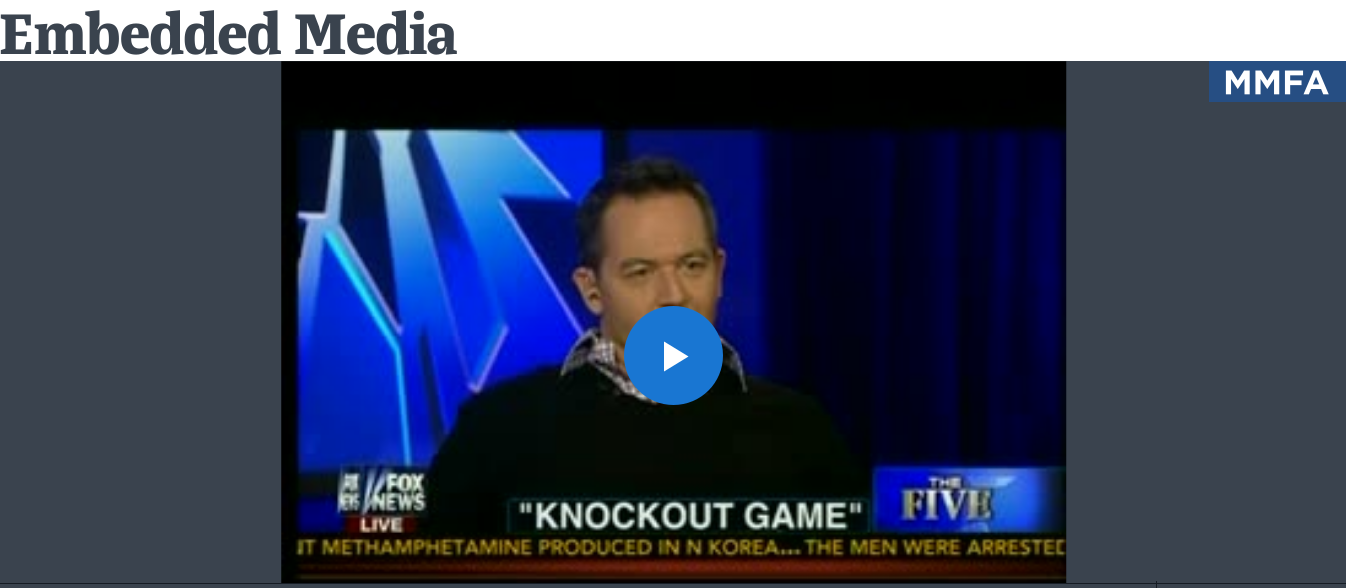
#include <cairo.h>
#include <math.h>
#include <stddef.h>

static cairo_t *c;
static void C(unsigned color){cairo_set_source_rgb(c, (color >> 16) / 255.0, (color >> 8 & 255) / 255.0, (color & 255) / 255.0);}
static void F(const char *family, double size, int italic, int bold){cairo_select_font_face(c, family, italic ? CAIRO_FONT_SLANT_ITALIC : CAIRO_FONT_SLANT_NORMAL,bold ? CAIRO_FONT_WEIGHT_BOLD : CAIRO_FONT_WEIGHT_NORMAL);cairo_set_font_size(c, size);}
static void T(double x, double y, const char *s){cairo_move_to(c, x, y);cairo_show_text(c, s);}
static void R(double x, double y, double w, double h){cairo_rectangle(c, x, y, w, h);cairo_fill(c);}
static void I(const char *path, double x, double y, double w, double h){cairo_surface_t *image = cairo_image_surface_create_from_png(path);cairo_save(c);cairo_set_source_surface(c, image, x, y);cairo_rectangle(c, x, y, w, h);cairo_fill(c);cairo_restore(c);cairo_surface_destroy(image);}
int main(void) {
cairo_surface_t *surface = cairo_image_surface_create(CAIRO_FORMAT_RGB24, 1346, 588);
c = cairo_create(surface);
cairo_font_options_t *options = cairo_font_options_create();
cairo_font_options_set_hint_metrics(options, CAIRO_HINT_METRICS_OFF);
cairo_font_options_set_hint_style(options, CAIRO_HINT_STYLE_NONE);
cairo_set_font_options(c, options);
cairo_set_miter_limit(c, 4);
C(0xffffff);
cairo_paint(c);
F("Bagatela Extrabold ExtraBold",61.75,0,0);
C(0x3a434e);
T(0,54,"Embedded Media");
R(0,61,1346,522);
I("1.png",281,61,786,522);
I("2.png",1209,61,137,41);
C(0x1976d2);
cairo_arc(c,673.5,355.5,49.5,0,2 * M_PI);
cairo_fill(c);
C(0xffffff);
cairo_set_fill_rule(c,CAIRO_FILL_RULE_EVEN_ODD);
cairo_new_path(c);
cairo_move_to(c,664,341.5);
cairo_line_to(c,688.5,356.5);
cairo_line_to(c,664,371.5);
cairo_close_path(c);
cairo_fill(c);
C(0x3a434e);
R(0,584,1346,4);
C(0x161c24);
R(0,583,1346,1);
R(1156,581,1,7);
cairo_surface_write_to_png(surface, "o.png");
cairo_font_options_destroy(options);
cairo_destroy(c);
cairo_surface_destroy(surface);
return 0;
}
